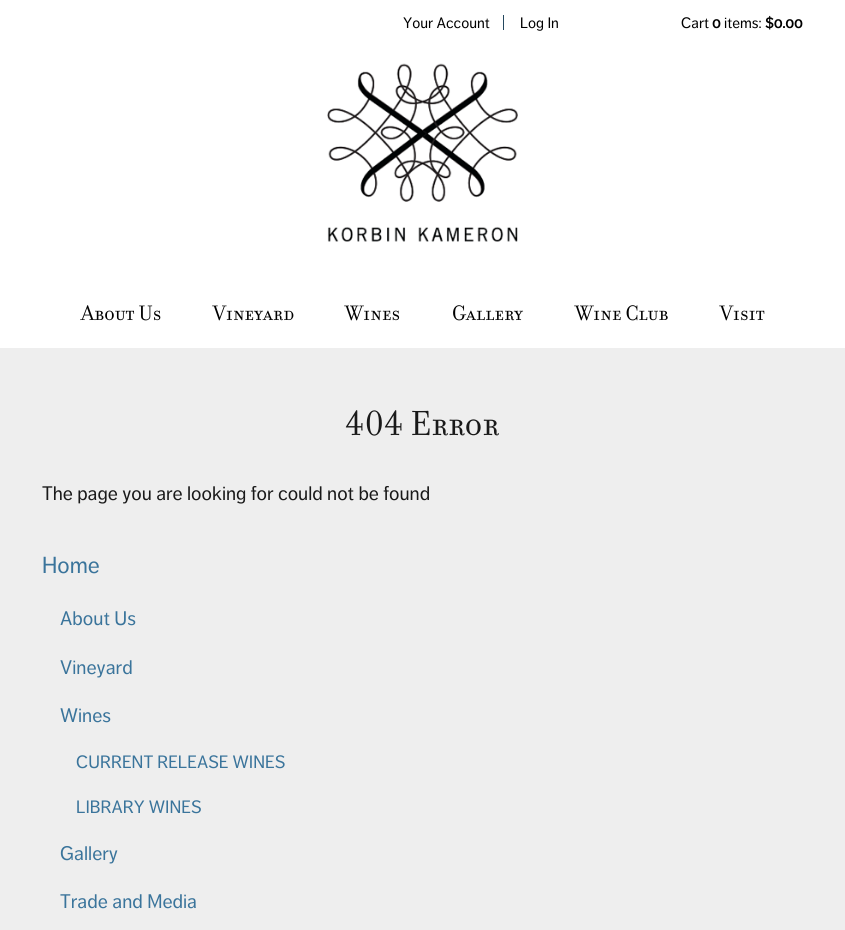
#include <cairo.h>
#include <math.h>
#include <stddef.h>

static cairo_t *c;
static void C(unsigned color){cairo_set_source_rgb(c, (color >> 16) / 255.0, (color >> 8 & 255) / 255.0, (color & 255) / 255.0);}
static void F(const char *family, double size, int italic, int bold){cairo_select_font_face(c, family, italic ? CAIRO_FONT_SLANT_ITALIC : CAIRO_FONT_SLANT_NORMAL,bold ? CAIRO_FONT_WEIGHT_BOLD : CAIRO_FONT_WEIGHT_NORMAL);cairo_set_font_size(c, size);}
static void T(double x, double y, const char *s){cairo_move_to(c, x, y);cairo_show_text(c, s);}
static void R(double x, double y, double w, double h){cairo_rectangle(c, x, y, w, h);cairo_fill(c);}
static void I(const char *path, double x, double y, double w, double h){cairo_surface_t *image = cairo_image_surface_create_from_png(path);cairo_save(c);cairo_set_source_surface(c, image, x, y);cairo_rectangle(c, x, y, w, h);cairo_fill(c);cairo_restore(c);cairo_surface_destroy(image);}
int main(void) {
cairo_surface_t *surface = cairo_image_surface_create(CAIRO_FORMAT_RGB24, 845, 930);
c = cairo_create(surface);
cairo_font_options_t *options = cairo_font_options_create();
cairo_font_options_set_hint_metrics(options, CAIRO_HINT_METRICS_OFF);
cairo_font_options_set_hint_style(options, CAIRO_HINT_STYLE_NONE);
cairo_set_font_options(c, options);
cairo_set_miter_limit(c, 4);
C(0xeeeeee);
cairo_paint(c);
C(0xffffff);
R(0,0,845,348);
C(0x24475e);
R(503,15,1,15);
F("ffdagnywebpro",15,0,0);
C(0x000000);
T(403,28,"Your Account");
T(520,28,"Log In");
T(681,28,"Cart");
F("ffdagnywebpro",15,0,1);
T(712,28,"0");
F("ffdagnywebpro",15,0,0);
T(724,28,"items:");
F("ffdagnywebpro",15,0,1);
T(765,28,"$0.00");
I("1.png",327,63,191,179);
F("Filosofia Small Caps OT",22.5,0,0);
T(81,320,"About Us");
T(213,320,"Vineyard");
T(345,320,"Wines");
T(452,320,"Gallery");
T(575,320,"Wine Club");
T(720,320,"Visit");
F("Filosofia Small Caps OT",37.5,0,0);
C(0x191919);
T(345,435,"404 Error");
F("ffdagnywebpro",19.4,0,0);
T(42,500,"The page you are looking for could not be found");
F("ffdagnywebpro",23,0,0);
C(0x3a749b);
T(42,573,"Home");
F("ffdagnywebpro",19.5,0,0);
T(60,625,"About Us");
T(60,674,"Vineyard");
T(60,722,"Wines");
F("ffdagnywebpro",17.75,0,0);
T(76,768,"CURRENT RELEASE WINES");
T(76,813,"LIBRARY WINES");
F("ffdagnywebpro",19.5,0,0);
T(60,860,"Gallery");
T(60,908,"Trade and Media");
cairo_surface_write_to_png(surface, "o.png");
cairo_font_options_destroy(options);
cairo_destroy(c);
cairo_surface_destroy(surface);
return 0;
}
